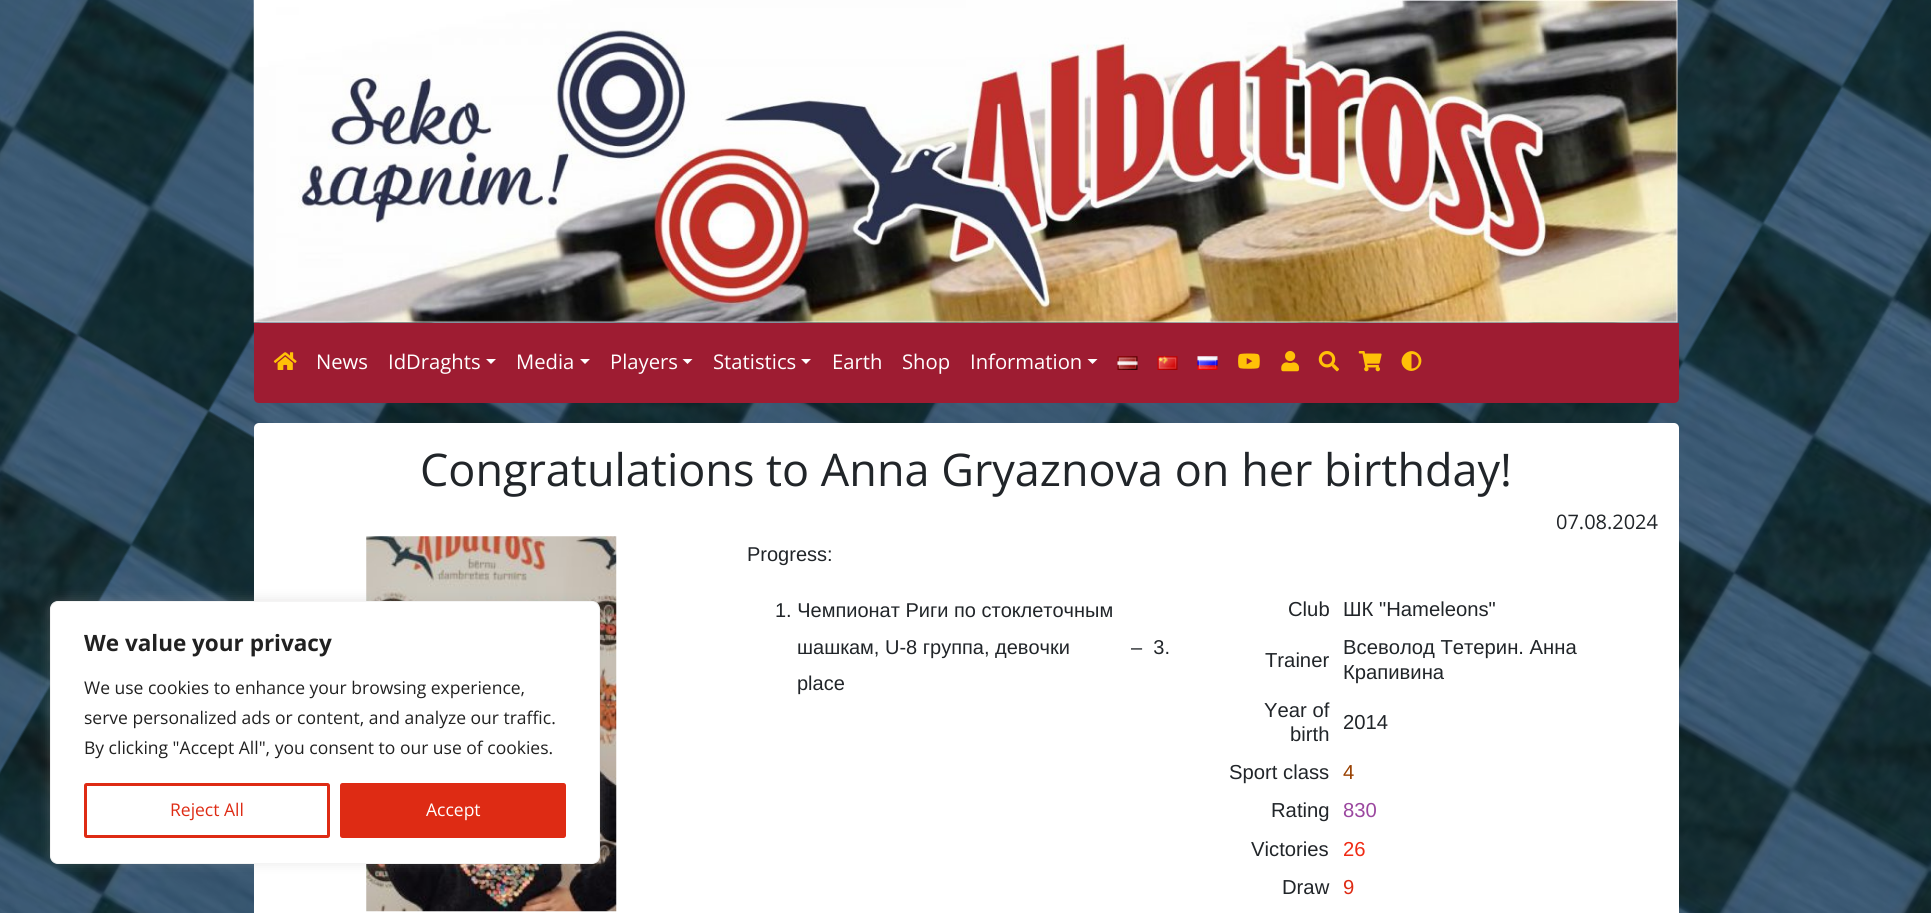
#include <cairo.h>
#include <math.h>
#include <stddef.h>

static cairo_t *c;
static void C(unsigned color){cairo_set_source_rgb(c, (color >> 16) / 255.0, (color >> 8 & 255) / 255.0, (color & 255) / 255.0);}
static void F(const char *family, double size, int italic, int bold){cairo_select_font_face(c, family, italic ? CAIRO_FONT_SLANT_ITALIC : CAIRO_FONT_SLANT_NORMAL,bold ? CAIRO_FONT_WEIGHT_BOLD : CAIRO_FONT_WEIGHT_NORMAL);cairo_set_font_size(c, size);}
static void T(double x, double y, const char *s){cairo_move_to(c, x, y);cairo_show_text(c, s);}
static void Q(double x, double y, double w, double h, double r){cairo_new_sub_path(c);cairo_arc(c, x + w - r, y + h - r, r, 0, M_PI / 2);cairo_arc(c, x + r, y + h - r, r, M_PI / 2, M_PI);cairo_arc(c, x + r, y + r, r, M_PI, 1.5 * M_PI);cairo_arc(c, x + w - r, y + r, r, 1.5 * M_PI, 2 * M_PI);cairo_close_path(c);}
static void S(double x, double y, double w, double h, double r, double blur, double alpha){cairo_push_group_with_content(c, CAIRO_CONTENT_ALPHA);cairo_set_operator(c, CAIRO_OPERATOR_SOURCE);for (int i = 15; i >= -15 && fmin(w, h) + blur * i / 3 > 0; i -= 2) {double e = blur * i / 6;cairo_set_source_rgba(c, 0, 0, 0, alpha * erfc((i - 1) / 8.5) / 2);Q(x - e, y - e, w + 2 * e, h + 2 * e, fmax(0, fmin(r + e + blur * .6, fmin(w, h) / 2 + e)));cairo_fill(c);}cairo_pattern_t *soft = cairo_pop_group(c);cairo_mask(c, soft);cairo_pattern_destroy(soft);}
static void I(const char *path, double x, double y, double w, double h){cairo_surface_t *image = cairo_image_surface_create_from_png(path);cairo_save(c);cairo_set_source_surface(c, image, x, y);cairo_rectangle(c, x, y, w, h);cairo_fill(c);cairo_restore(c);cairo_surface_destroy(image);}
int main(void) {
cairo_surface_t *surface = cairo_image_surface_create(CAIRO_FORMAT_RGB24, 1931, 913);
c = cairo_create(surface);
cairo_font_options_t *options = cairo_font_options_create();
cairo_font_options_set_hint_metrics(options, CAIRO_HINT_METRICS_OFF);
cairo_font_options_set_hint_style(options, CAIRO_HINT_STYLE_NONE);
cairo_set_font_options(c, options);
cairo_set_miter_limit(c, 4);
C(0xffffff);
cairo_paint(c);
I("1.png",0,0,1931,913);
I("2.png",253,0,1425,323);
C(0x9e1c32);
cairo_new_path(c);
cairo_move_to(c,254,323);
cairo_line_to(c,1679,323);
cairo_line_to(c,1679,398);
cairo_curve_to(c,1679,401,1677,403,1674,403);
cairo_line_to(c,259,403);
cairo_curve_to(c,256,403,254,401,254,398);
cairo_close_path(c);
cairo_fill(c);
I("3.png",273,352,24,18);
F("Open Sans",20.25,0,0);
C(0xffffff);
T(316,369,"News");
T(388,369,"IdDraghts");
cairo_new_path(c);
cairo_move_to(c,486,359);
cairo_line_to(c,496,359);
cairo_line_to(c,491,364);
cairo_close_path(c);
cairo_fill(c);
T(516,369,"Media");
cairo_new_path(c);
cairo_move_to(c,580,359);
cairo_line_to(c,590,359);
cairo_line_to(c,585,364);
cairo_close_path(c);
cairo_fill(c);
T(610,369,"Players");
cairo_new_path(c);
cairo_move_to(c,682.5,359);
cairo_line_to(c,692.5,359);
cairo_line_to(c,687.5,364);
cairo_close_path(c);
cairo_fill(c);
T(713,369,"Statistics");
cairo_new_path(c);
cairo_move_to(c,801,359);
cairo_line_to(c,811,359);
cairo_line_to(c,806,364);
cairo_close_path(c);
cairo_fill(c);
T(832,369,"Earth");
T(902,369,"Shop");
T(970,369,"Information");
cairo_new_path(c);
cairo_move_to(c,1087.5,359);
cairo_line_to(c,1097.5,359);
cairo_line_to(c,1092.5,364);
cairo_close_path(c);
cairo_fill(c);
I("4.png",1117,356,21,14);
I("5.png",1157,356,21,14);
I("6.png",1197,356,21,14);
I("7.png",1238,353,22,16);
I("8.png",1281,351,18,21);
I("9.png",1318,351,21,21);
I("10.png",1358,351,24,21);
C(0xffc107);
cairo_new_path(c);
cairo_move_to(c,1404.5,368);
cairo_curve_to(c,1395.5,359,1409,345,1418.5,354);
cairo_curve_to(c,1427.5,363.5,1413.5,377,1404.5,368);
cairo_close_path(c);
cairo_move_to(c,1411.5,368.5);
cairo_curve_to(c,1421,368.5,1421,354,1411.5,354);
cairo_close_path(c);
cairo_fill(c);
C(0xffffff);
Q(254,423,1425,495,5);
cairo_fill(c);
I("11.png",366,536,251,376);
C(0xacabab);
S(50,600,550,263,8,6,.3);
C(0xffffff);
Q(50.5,601.5,549,262,7.5);
cairo_fill_preserve(c);
C(0xf4f4f4);
cairo_set_line_width(c,1);
cairo_stroke(c);
F("Open Sans",22.5,0,1);
C(0x212121);
T(84,651,"We value your privacy");
F("Open Sans",17.5,0,0);
T(84,694,"We use cookies to enhance your browsing experience,");
T(84,724,"serve personalized ads or content, and analyze our traffic.");
T(84,754,"By clicking \"Accept All\", you consent to our use of cookies.");
Q(85.5,784.5,243,52,1);
C(0xde2b14);
cairo_set_line_width(c,3);
cairo_stroke(c);
T(170,816,"Reject All");
Q(341.5,784.5,223,52,1);
cairo_fill_preserve(c);
cairo_stroke(c);
C(0xffffff);
T(426,816,"Accept");
F("Open Sans",45,0,0);
C(0x212529);
T(420,486,"Congratulations to Anna Gryaznova on her birthday!");
F("Open Sans",20,0,0);
T(1556,529,"07.08.2024");
F("Liberation Sans",20,0,0);
T(747,561,"Progress:");
T(775,617,"1. Чемпионат Риги по стоклеточным");
T(797,654,"шашкам, U-8 группа, девочки           –  3.");
T(797,690,"place");
F("Liberation Sans",20.25,0,0);
T(1288,616,"Club");
T(1343,616,"ШК \"Hameleons\"");
T(1265,667,"Trainer");
T(1343,654,"Всеволод Тетерин. Анна");
T(1343,679,"Крапивина");
T(1264,717,"Year of");
T(1290,741,"birth");
T(1343,729,"2014");
T(1229,779,"Sport class");
C(0x984000);
T(1343,779,"4");
C(0x212529);
T(1271,817,"Rating");
C(0x9b479f);
T(1343,817,"830");
C(0x212529);
T(1251,856,"Victories");
C(0xf02a13);
T(1343,856,"26");
C(0x212529);
T(1282,894,"Draw");
C(0xde2b14);
T(1343,894,"9");
cairo_surface_write_to_png(surface, "o.png");
cairo_font_options_destroy(options);
cairo_destroy(c);
cairo_surface_destroy(surface);
return 0;
}
